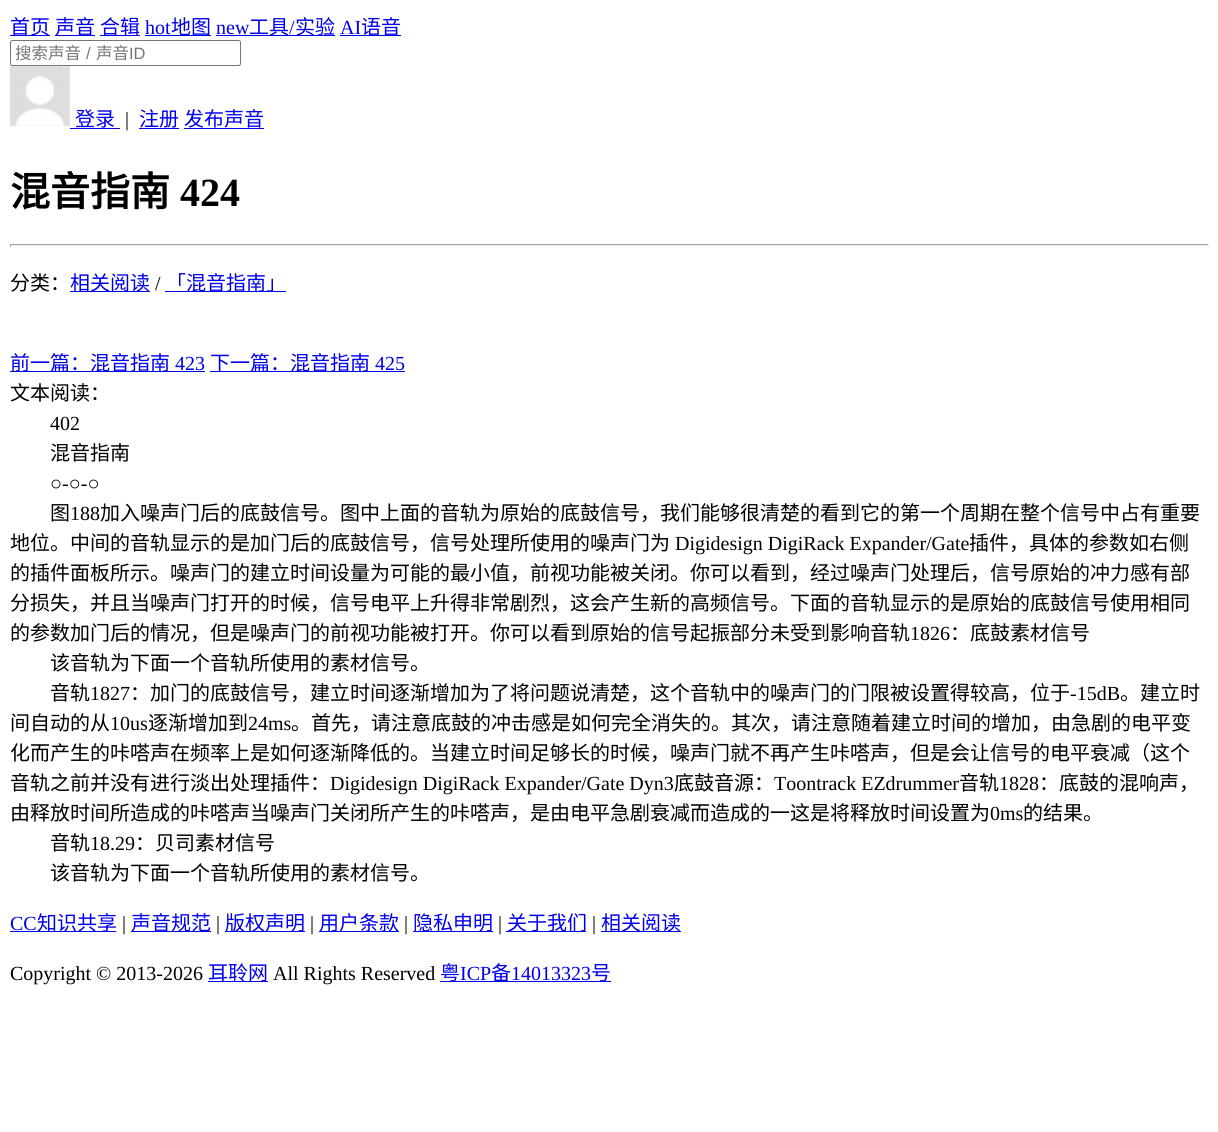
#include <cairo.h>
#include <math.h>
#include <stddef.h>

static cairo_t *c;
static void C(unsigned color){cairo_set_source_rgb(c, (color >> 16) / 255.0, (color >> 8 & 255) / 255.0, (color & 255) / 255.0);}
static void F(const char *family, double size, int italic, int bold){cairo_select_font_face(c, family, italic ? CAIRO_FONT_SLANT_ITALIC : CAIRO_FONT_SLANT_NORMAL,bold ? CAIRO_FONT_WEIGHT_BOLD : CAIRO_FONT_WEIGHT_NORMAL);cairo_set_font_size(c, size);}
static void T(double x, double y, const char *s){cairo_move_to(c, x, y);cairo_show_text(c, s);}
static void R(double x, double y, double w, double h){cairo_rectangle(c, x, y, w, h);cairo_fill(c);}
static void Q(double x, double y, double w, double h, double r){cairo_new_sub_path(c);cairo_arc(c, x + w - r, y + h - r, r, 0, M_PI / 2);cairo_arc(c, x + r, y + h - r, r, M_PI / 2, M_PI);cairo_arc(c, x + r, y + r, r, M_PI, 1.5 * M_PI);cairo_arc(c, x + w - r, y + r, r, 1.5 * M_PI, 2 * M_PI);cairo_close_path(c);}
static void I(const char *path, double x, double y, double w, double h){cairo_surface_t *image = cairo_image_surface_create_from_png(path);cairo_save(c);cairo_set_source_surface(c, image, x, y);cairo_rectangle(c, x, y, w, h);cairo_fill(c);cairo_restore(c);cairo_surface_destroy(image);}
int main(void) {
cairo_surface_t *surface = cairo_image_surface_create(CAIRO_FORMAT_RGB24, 1218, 1132);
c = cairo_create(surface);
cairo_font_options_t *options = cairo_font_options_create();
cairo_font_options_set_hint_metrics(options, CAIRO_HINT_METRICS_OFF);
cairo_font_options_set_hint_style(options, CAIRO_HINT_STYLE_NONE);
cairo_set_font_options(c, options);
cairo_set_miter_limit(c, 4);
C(0xffffff);
cairo_paint(c);
C(0x0000ee);
R(10,35,40,1);
F("Noto Sans CJK SC",20,0,0);
T(10,34,"首页");
R(55,35,40,1);
T(55,34,"声音");
R(100,35,40,1);
T(100,34,"合辑");
F("Liberation Serif",20,0,0);
T(145,34,"hot");
R(145,35,66,1);
F("Noto Sans CJK SC",20,0,0);
T(171,34,"地图");
F("Liberation Serif",20,0,0);
T(216,34,"new");
R(216,35,119,1);
F("Noto Sans CJK SC",20,0,0);
T(249,34,"工具");
F("Liberation Serif",20,0,0);
T(289,34,"/");
F("Noto Sans CJK SC",20,0,0);
T(295,34,"实验");
F("Liberation Serif",20,0,0);
T(340,34,"AI");
R(340,35,61,1);
F("Noto Sans CJK SC",20,0,0);
T(361,34,"语音");
Q(10.5,40.5,230,25,2);
C(0x767676);
cairo_set_line_width(c,1);
cairo_stroke(c);
F("Noto Sans CJK SC",16.5,0,0);
C(0x757575);
T(15,59,"搜索声音");
F("Liberation Sans",16.5,0,0);
T(86,59,"/");
F("Noto Sans CJK SC",16.5,0,0);
T(96,59,"声音");
F("Liberation Sans",16.5,0,0);
T(129,59,"ID");
I("1.png",10,66,60,61);
F("Noto Sans CJK SC",20,0,0);
C(0x0000ee);
T(75,126,"登录");
R(70,128,50,1);
F("Liberation Serif",20,0,0);
C(0x000000);
T(125,126,"|");
F("Noto Sans CJK SC",20,0,0);
C(0x0000ee);
T(139,126,"注册");
R(139,128,40,1);
T(184,126,"发布声音");
R(184,128,80,1);
F("Noto Sans CJK SC",40,0,1);
C(0x000000);
T(10,206,"混音指南");
F("Liberation Serif",40,0,1);
T(180,206,"424");
C(0x9f9f9f);
R(10,244,1199,1);
C(0xeeeeee);
R(1208,244,1,3);
R(10,245,1199,1);
C(0x9f9f9f);
R(10,244,1,3);
F("Noto Sans CJK SC",20,0,0);
C(0x000000);
T(10,290,"分类：");
C(0x0000ee);
R(70,291,80,1);
T(70,290,"相关阅读");
F("Liberation Serif",20,0,0);
C(0x000000);
T(155,290,"/");
C(0x0000ee);
R(165,291,121,1);
F("Noto Sans CJK SC",20,0,0);
T(166,290,"「混音指南」");
R(10,371,195,1);
T(10,370,"前一篇：混音指南");
F("Liberation Serif",20,0,0);
T(175,370,"423");
R(210,371,195,1);
F("Noto Sans CJK SC",20,0,0);
T(210,370,"下一篇：混音指南");
F("Liberation Serif",20,0,0);
T(375,370,"425");
F("Noto Sans CJK SC",20,0,0);
C(0x000000);
T(10,400,"文本阅读：");
F("Liberation Serif",20,0,0);
T(50,430,"402");
F("Noto Sans CJK SC",20,0,0);
T(50,460,"混音指南");
F("Liberation Serif",20,0,0);
T(50,490,"○-○-○");
F("Noto Sans CJK SC",20,0,0);
T(50,520,"图");
F("Liberation Serif",20,0,0);
T(70,520,"188");
F("Noto Sans CJK SC",20,0,0);
T(100,520,"加入噪声门后的底鼓信号。图中上面的音轨为原始的底鼓信号，我们能够很清楚的看到它的第一个周期在整个信号中占有重要");
T(10,550,"地位。中间的音轨显示的是加门后的底鼓信号，信号处理所使用的噪声门为");
F("Liberation Serif",20,0,0);
T(675,550,"Digidesign DigiRack Expander/Gate");
F("Noto Sans CJK SC",20,0,0);
T(969,550,"插件，具体的参数如右侧");
T(10,580,"的插件面板所示。噪声门的建立时间设量为可能的最小值，前视功能被关闭。你可以看到，经过噪声门处理后，信号原始的冲力感有部");
T(10,610,"分损失，并且当噪声门打开的时候，信号电平上升得非常剧烈，这会产生新的高频信号。下面的音轨显示的是原始的底鼓信号使用相同");
T(10,640,"的参数加门后的情况，但是噪声门的前视功能被打开。你可以看到原始的信号起振部分未受到影响音轨");
F("Liberation Serif",20,0,0);
T(910,640,"1826");
F("Noto Sans CJK SC",20,0,0);
T(950,640,"：底鼓素材信号");
T(50,670,"该音轨为下面一个音轨所使用的素材信号。");
T(50,700,"音轨");
F("Liberation Serif",20,0,0);
T(90,700,"1827");
F("Noto Sans CJK SC",20,0,0);
T(130,700,"：加门的底鼓信号，建立时间逐渐增加为了将问题说清楚，这个音轨中的噪声门的门限被设置得较高，位于");
F("Liberation Serif",20,0,0);
T(1070,700,"-15dB");
F("Noto Sans CJK SC",20,0,0);
T(1120,700,"。建立时");
T(10,730,"间自动的从");
F("Liberation Serif",20,0,0);
T(110,730,"10us");
F("Noto Sans CJK SC",20,0,0);
T(148,730,"逐渐增加到");
F("Liberation Serif",20,0,0);
T(248,730,"24ms");
F("Noto Sans CJK SC",20,0,0);
T(291,730,"。首先，请注意底鼓的冲击感是如何完全消失的。其次，请注意随着建立时间的增加，由急剧的电平变");
T(10,760,"化而产生的咔嗒声在频率上是如何逐渐降低的。当建立时间足够长的时候，噪声门就不再产生咔嗒声，但是会让信号的电平衰减（这个");
T(10,790,"音轨之前并没有进行淡出处理插件：");
F("Liberation Serif",20,0,0);
T(330,790,"Digidesign DigiRack Expander/Gate Dyn3");
F("Noto Sans CJK SC",20,0,0);
T(674,790,"底鼓音源：");
F("Liberation Serif",20,0,0);
T(774,790,"Toontrack EZdrummer");
F("Noto Sans CJK SC",20,0,0);
T(959,790,"音轨");
F("Liberation Serif",20,0,0);
T(999,790,"1828");
F("Noto Sans CJK SC",20,0,0);
T(1039,790,"：底鼓的混响声，");
T(10,820,"由释放时间所造成的咔嗒声当噪声门关闭所产生的咔嗒声，是由电平急剧衰减而造成的一这是将释放时间设置为");
F("Liberation Serif",20,0,0);
T(990,820,"0ms");
F("Noto Sans CJK SC",20,0,0);
T(1023,820,"的结果。");
T(50,850,"音轨");
F("Liberation Serif",20,0,0);
T(90,850,"18.29");
F("Noto Sans CJK SC",20,0,0);
T(135,850,"：贝司素材信号");
T(50,880,"该音轨为下面一个音轨所使用的素材信号。");
F("Liberation Serif",20,0,0);
C(0x0000ee);
T(10,930,"CC");
R(10,931,106,1);
F("Noto Sans CJK SC",20,0,0);
T(37,930,"知识共享");
F("Liberation Serif",20,0,0);
C(0x000000);
T(122,930,"|");
C(0x0000ee);
R(131,931,80,1);
F("Noto Sans CJK SC",20,0,0);
T(131,930,"声音规范");
F("Liberation Serif",20,0,0);
C(0x000000);
T(216,930,"|");
C(0x0000ee);
R(225,931,80,1);
F("Noto Sans CJK SC",20,0,0);
T(225,930,"版权声明");
F("Liberation Serif",20,0,0);
C(0x000000);
T(310,930,"|");
C(0x0000ee);
R(319,931,80,1);
F("Noto Sans CJK SC",20,0,0);
T(319,930,"用户条款");
F("Liberation Serif",20,0,0);
C(0x000000);
T(404,930,"|");
C(0x0000ee);
R(413,931,80,1);
F("Noto Sans CJK SC",20,0,0);
T(413,930,"隐私申明");
F("Liberation Serif",20,0,0);
C(0x000000);
T(498,930,"|");
C(0x0000ee);
R(506,931,80,1);
F("Noto Sans CJK SC",20,0,0);
T(507,930,"关于我们");
F("Liberation Serif",20,0,0);
C(0x000000);
T(592,930,"|");
C(0x0000ee);
R(601,931,80,1);
F("Noto Sans CJK SC",20,0,0);
T(601,930,"相关阅读");
F("Liberation Serif",20,0,0);
C(0x000000);
T(10,980,"Copyright © 2013-2026");
C(0x0000ee);
R(208,981,60,1);
F("Noto Sans CJK SC",20,0,0);
T(208,980,"耳聆网");
F("Liberation Serif",20,0,0);
C(0x000000);
T(273,980,"All Rights Reserved");
C(0x0000ee);
R(440,981,171,1);
F("Noto Sans CJK SC",20,0,0);
T(440,980,"粤");
F("Liberation Serif",20,0,0);
T(460,980,"ICP");
F("Noto Sans CJK SC",20,0,0);
T(491,980,"备");
F("Liberation Serif",20,0,0);
T(511,980,"14013323");
F("Noto Sans CJK SC",20,0,0);
T(591,980,"号");
cairo_surface_write_to_png(surface, "o.png");
cairo_font_options_destroy(options);
cairo_destroy(c);
cairo_surface_destroy(surface);
return 0;
}
